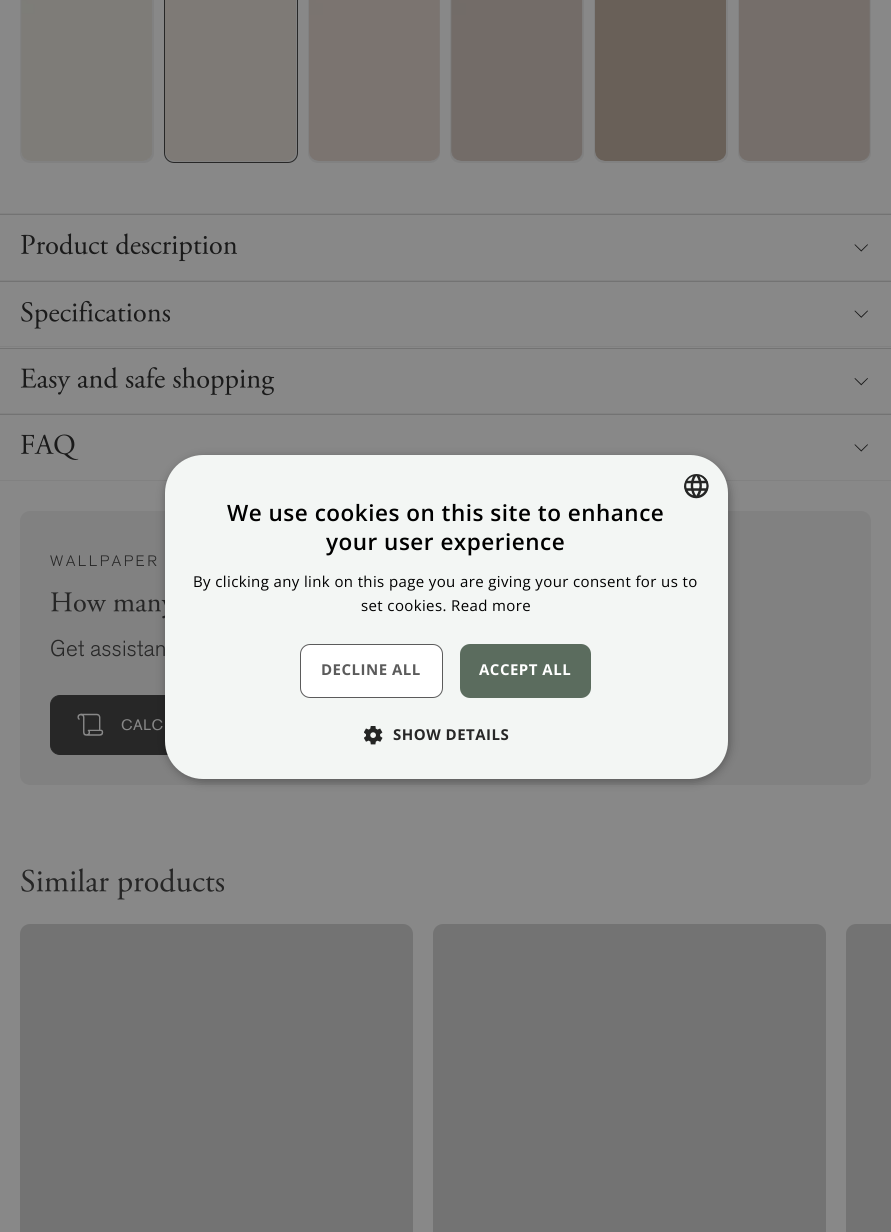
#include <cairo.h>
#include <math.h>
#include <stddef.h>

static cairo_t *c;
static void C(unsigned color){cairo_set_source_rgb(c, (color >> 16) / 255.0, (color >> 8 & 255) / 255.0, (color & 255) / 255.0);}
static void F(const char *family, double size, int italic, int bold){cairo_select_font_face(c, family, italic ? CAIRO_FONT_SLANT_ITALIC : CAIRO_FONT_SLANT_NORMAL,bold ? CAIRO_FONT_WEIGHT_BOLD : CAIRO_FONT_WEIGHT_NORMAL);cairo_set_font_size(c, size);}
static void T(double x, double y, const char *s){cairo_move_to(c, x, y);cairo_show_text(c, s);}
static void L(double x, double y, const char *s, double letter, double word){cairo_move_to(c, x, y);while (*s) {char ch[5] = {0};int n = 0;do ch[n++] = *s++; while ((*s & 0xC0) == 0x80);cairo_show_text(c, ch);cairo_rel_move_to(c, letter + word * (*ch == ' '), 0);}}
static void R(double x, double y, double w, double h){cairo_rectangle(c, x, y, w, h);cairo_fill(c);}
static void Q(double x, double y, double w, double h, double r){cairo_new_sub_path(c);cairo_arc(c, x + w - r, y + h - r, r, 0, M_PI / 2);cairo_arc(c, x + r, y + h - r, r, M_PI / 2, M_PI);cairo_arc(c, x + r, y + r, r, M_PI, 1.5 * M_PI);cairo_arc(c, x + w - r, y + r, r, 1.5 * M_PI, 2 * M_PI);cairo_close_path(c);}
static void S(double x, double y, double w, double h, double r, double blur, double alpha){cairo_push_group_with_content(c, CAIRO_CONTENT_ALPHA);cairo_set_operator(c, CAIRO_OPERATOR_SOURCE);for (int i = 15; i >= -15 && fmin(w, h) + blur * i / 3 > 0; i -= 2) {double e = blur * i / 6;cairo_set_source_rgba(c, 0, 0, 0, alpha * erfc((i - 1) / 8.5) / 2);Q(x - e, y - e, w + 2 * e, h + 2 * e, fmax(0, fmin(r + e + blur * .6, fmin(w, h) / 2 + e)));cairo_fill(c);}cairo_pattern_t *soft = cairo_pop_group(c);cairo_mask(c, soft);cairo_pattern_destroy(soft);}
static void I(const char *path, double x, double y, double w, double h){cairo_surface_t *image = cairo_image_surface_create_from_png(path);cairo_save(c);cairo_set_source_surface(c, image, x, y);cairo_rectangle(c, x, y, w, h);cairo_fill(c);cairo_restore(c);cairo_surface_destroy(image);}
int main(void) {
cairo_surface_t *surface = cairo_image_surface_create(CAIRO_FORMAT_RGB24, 891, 1232);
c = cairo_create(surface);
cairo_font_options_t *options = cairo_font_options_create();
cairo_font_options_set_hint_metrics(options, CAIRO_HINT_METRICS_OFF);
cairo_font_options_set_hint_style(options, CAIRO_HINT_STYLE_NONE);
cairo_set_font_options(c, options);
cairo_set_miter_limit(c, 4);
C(0x888888);
cairo_paint(c);
C(0x818181);
Q(20,-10,134,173,10);
cairo_fill(c);
I("1.png",21,0,131,161);
Q(164.5,-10.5,133,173,9.5);
cairo_fill_preserve(c);
C(0x272727);
cairo_set_line_width(c,1);
cairo_stroke(c);
I("2.png",165,0,131,161);
C(0x818181);
Q(308,-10,132,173,10);
cairo_fill(c);
I("3.png",309,0,131,161);
Q(450,-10,134,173,10);
cairo_fill(c);
I("4.png",451,0,132,161);
Q(594,-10,134,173,10);
cairo_fill(c);
I("5.png",595,0,131,161);
Q(738,-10,133,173,10);
cairo_fill(c);
I("6.png",739,0,131,161);
R(0,213,891,1);
R(0,280,891,1);
C(0x737373);
R(0,214,891,1);
I("7.png",21,233,217,29);
I("8.png",854,244,14,8);
C(0x818181);
R(0,346,891,1);
C(0x737373);
R(0,281,891,1);
I("9.png",21,300,149,29);
I("10.png",854,310,14,8);
C(0x818181);
R(0,413,891,1);
C(0x737373);
R(0,348,891,1);
I("11.png",20,367,255,29);
I("12.png",854,378,14,8);
C(0x818181);
R(0,480,891,1);
C(0x737373);
R(0,414,891,1);
I("13.png",21,434,58,26);
I("8.png",854,444,14,8);
C(0x818181);
Q(20,511,851,274,10);
cairo_fill(c);
F("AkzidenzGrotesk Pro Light",15,0,0);
C(0x272727);
L(50,566,"WALLPAPER",2.5,0);
I("14.png",51,592,114,27);
F("AkzidenzGrotesk Pro Light",22.5,0,0);
T(50,656,"Get assistan");
Q(50.5,695.5,340,59,9.5);
cairo_fill_preserve(c);
cairo_stroke(c);
I("15.png",77,713,27,23);
F("AkzidenzGrotesk Pro",15,0,0);
C(0x888888);
L(121,730,"CALC",.5,0);
I("16.png",21,868,203,32);
C(0x737373);
Q(20,924,393,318,10);
cairo_fill(c);
Q(433,924,393,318,10);
cairo_fill(c);
cairo_new_path(c);
cairo_move_to(c,856,924);
cairo_line_to(c,891,924);
cairo_line_to(c,891,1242);
cairo_line_to(c,856,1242);
cairo_curve_to(c,850.5,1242,846,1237.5,846,1232);
cairo_line_to(c,846,934);
cairo_curve_to(c,846,928.5,850.5,924,856,924);
cairo_close_path(c);
cairo_fill(c);
C(0x000000);
S(166,458,563,323,38,5,.35);
C(0xf3f6f4);
Q(165,455,563,324,38);
cairo_fill(c);
I("17.png",684,474,25,25);
F("Open Sans SemiBold",22.5,0,0);
C(0x000000);
L(227,521,"We use cookies on this site to enhance",.5,0);
L(326,550,"your user experience",.5,0);
F("Open Sans",15,0,0);
L(193,587,"By clicking any link on this page you are giving your consent for us to",.38,0);
L(361,611,"set cookies. Read more",.38,0);
C(0xffffff);
Q(300.5,644.5,142,53,9.5);
cairo_fill_preserve(c);
C(0x5b5b5b);
cairo_stroke(c);
F("Open Sans",15,0,1);
L(321,675,"DECLINE ALL",.5,0);
C(0x5b6c5e);
Q(460,644,131,54,10);
cairo_fill(c);
C(0xffffff);
L(479,675,"ACCEPT ALL",.5,0);
I("18.png",364,726,19,19);
C(0x272727);
L(393,740,"SHOW DETAILS",.5,0);
cairo_surface_write_to_png(surface, "o.png");
cairo_font_options_destroy(options);
cairo_destroy(c);
cairo_surface_destroy(surface);
return 0;
}
